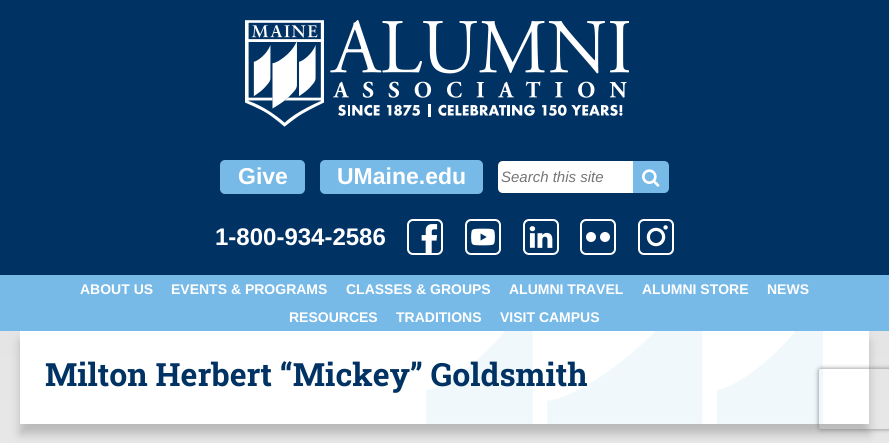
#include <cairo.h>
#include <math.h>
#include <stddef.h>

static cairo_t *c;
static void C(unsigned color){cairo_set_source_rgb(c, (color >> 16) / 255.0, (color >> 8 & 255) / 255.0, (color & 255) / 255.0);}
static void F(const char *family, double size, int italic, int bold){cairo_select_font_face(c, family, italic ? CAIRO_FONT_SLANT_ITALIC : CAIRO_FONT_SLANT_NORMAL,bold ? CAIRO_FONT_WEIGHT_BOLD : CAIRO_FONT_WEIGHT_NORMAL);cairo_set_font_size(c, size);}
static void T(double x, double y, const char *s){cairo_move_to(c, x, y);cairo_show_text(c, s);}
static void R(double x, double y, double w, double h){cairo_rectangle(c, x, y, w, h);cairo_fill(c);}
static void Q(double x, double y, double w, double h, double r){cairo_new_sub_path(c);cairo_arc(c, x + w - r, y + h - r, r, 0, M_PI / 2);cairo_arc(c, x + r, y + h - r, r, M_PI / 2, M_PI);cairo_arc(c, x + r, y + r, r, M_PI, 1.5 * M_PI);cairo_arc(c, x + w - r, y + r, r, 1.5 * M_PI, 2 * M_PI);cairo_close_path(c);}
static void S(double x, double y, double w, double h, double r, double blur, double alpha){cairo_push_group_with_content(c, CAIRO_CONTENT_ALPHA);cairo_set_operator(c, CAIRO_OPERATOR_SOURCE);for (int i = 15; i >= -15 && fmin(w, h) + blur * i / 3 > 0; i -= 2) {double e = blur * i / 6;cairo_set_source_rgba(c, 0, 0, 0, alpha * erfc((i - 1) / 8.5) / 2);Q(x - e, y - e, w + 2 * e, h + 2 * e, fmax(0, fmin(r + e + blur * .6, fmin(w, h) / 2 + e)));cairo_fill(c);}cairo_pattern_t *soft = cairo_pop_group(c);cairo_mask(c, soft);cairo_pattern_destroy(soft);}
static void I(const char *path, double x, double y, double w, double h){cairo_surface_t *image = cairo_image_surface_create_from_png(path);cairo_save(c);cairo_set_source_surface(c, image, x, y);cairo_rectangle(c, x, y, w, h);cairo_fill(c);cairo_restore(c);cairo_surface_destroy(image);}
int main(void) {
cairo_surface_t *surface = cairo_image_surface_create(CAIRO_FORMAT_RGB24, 889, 443);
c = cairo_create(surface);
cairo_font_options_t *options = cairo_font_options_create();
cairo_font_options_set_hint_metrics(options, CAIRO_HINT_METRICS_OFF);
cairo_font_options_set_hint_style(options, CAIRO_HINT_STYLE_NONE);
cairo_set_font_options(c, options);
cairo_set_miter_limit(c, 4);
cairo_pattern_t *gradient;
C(0xffffff);
cairo_paint(c);
gradient = cairo_pattern_create_linear(444,0,445,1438);
cairo_pattern_add_color_stop_rgba(gradient,0,0.867,0.867,0.867,1);
cairo_pattern_add_color_stop_rgba(gradient,1,1,1,1,1);
cairo_set_source(c,gradient);
cairo_pattern_destroy(gradient);
R(0,331,889,112);
C(0x003263);
R(0,0,889,275);
I("1.png",245,20,384,107);
C(0x77b9e7);
Q(220,160,85,34,5);
cairo_fill(c);
F("Liberation Sans",23,0,1);
C(0xffffff);
T(238,184,"Give");
C(0x77b9e7);
Q(320,160,163,34,5);
cairo_fill(c);
C(0xffffff);
T(337,184,"UMaine.edu");
cairo_new_path(c);
cairo_move_to(c,503,161);
cairo_line_to(c,633,161);
cairo_line_to(c,633,193);
cairo_line_to(c,503,193);
cairo_curve_to(c,500,193,498,191,498,188);
cairo_line_to(c,498,166);
cairo_curve_to(c,498,163,500,161,503,161);
cairo_close_path(c);
cairo_fill(c);
F("Liberation Sans",15,1,0);
C(0x757575);
T(501,182,"Search this site");
C(0x77b9e7);
cairo_new_path(c);
cairo_move_to(c,633,161);
cairo_line_to(c,664,161);
cairo_curve_to(c,667,161,669,163,669,166);
cairo_line_to(c,669,188);
cairo_curve_to(c,669,191,667,193,664,193);
cairo_line_to(c,633,193);
cairo_close_path(c);
cairo_fill(c);
I("2.png",642,169,18,18);
F("Liberation Sans",24,0,1);
C(0xffffff);
T(215,245,"1-800-934-2586");
I("3.png",407,219,36,36);
I("4.png",465,219,36,36);
I("5.png",523,219,36,36);
I("6.png",580,219,36,36);
I("7.png",638,219,36,36);
C(0x77b9e7);
R(0,275,889,56);
F("Liberation Sans",14,0,1);
C(0xffffff);
T(80,294,"ABOUT US");
T(171,294,"EVENTS & PROGRAMS");
T(346,294,"CLASSES & GROUPS");
T(509,294,"ALUMNI TRAVEL");
T(642,294,"ALUMNI STORE");
T(767,294,"NEWS");
T(289,322,"RESOURCES");
T(396,322,"TRADITIONS");
T(500,322,"VISIT CAMPUS");
C(0x000000);
S(20,341,849,93,0,5,.2);
C(0xffffff);
R(20,331,849,93);
I("8.png",426,331,397,93);
F("Roboto Slab",32,0,1);
C(0x003263);
T(45,386,"Milton Herbert “Mickey” Goldsmith");
cairo_save(c);
cairo_set_fill_rule(c,CAIRO_FILL_RULE_EVEN_ODD);
cairo_new_path(c);
cairo_move_to(c,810,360);
cairo_line_to(c,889,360);
cairo_line_to(c,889,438);
cairo_line_to(c,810,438);
cairo_close_path(c);
cairo_move_to(c,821,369);
cairo_line_to(c,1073,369);
cairo_curve_to(c,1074,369,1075,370,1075,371);
cairo_line_to(c,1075,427);
cairo_curve_to(c,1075,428,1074,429,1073,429);
cairo_line_to(c,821,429);
cairo_curve_to(c,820,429,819,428,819,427);
cairo_line_to(c,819,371);
cairo_curve_to(c,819,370,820,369,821,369);
cairo_close_path(c);
cairo_clip(c);
C(0x808080);
S(819,369,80,60,2,2.5,1);
cairo_restore(c);
cairo_surface_write_to_png(surface, "o.png");
cairo_font_options_destroy(options);
cairo_destroy(c);
cairo_surface_destroy(surface);
return 0;
}
